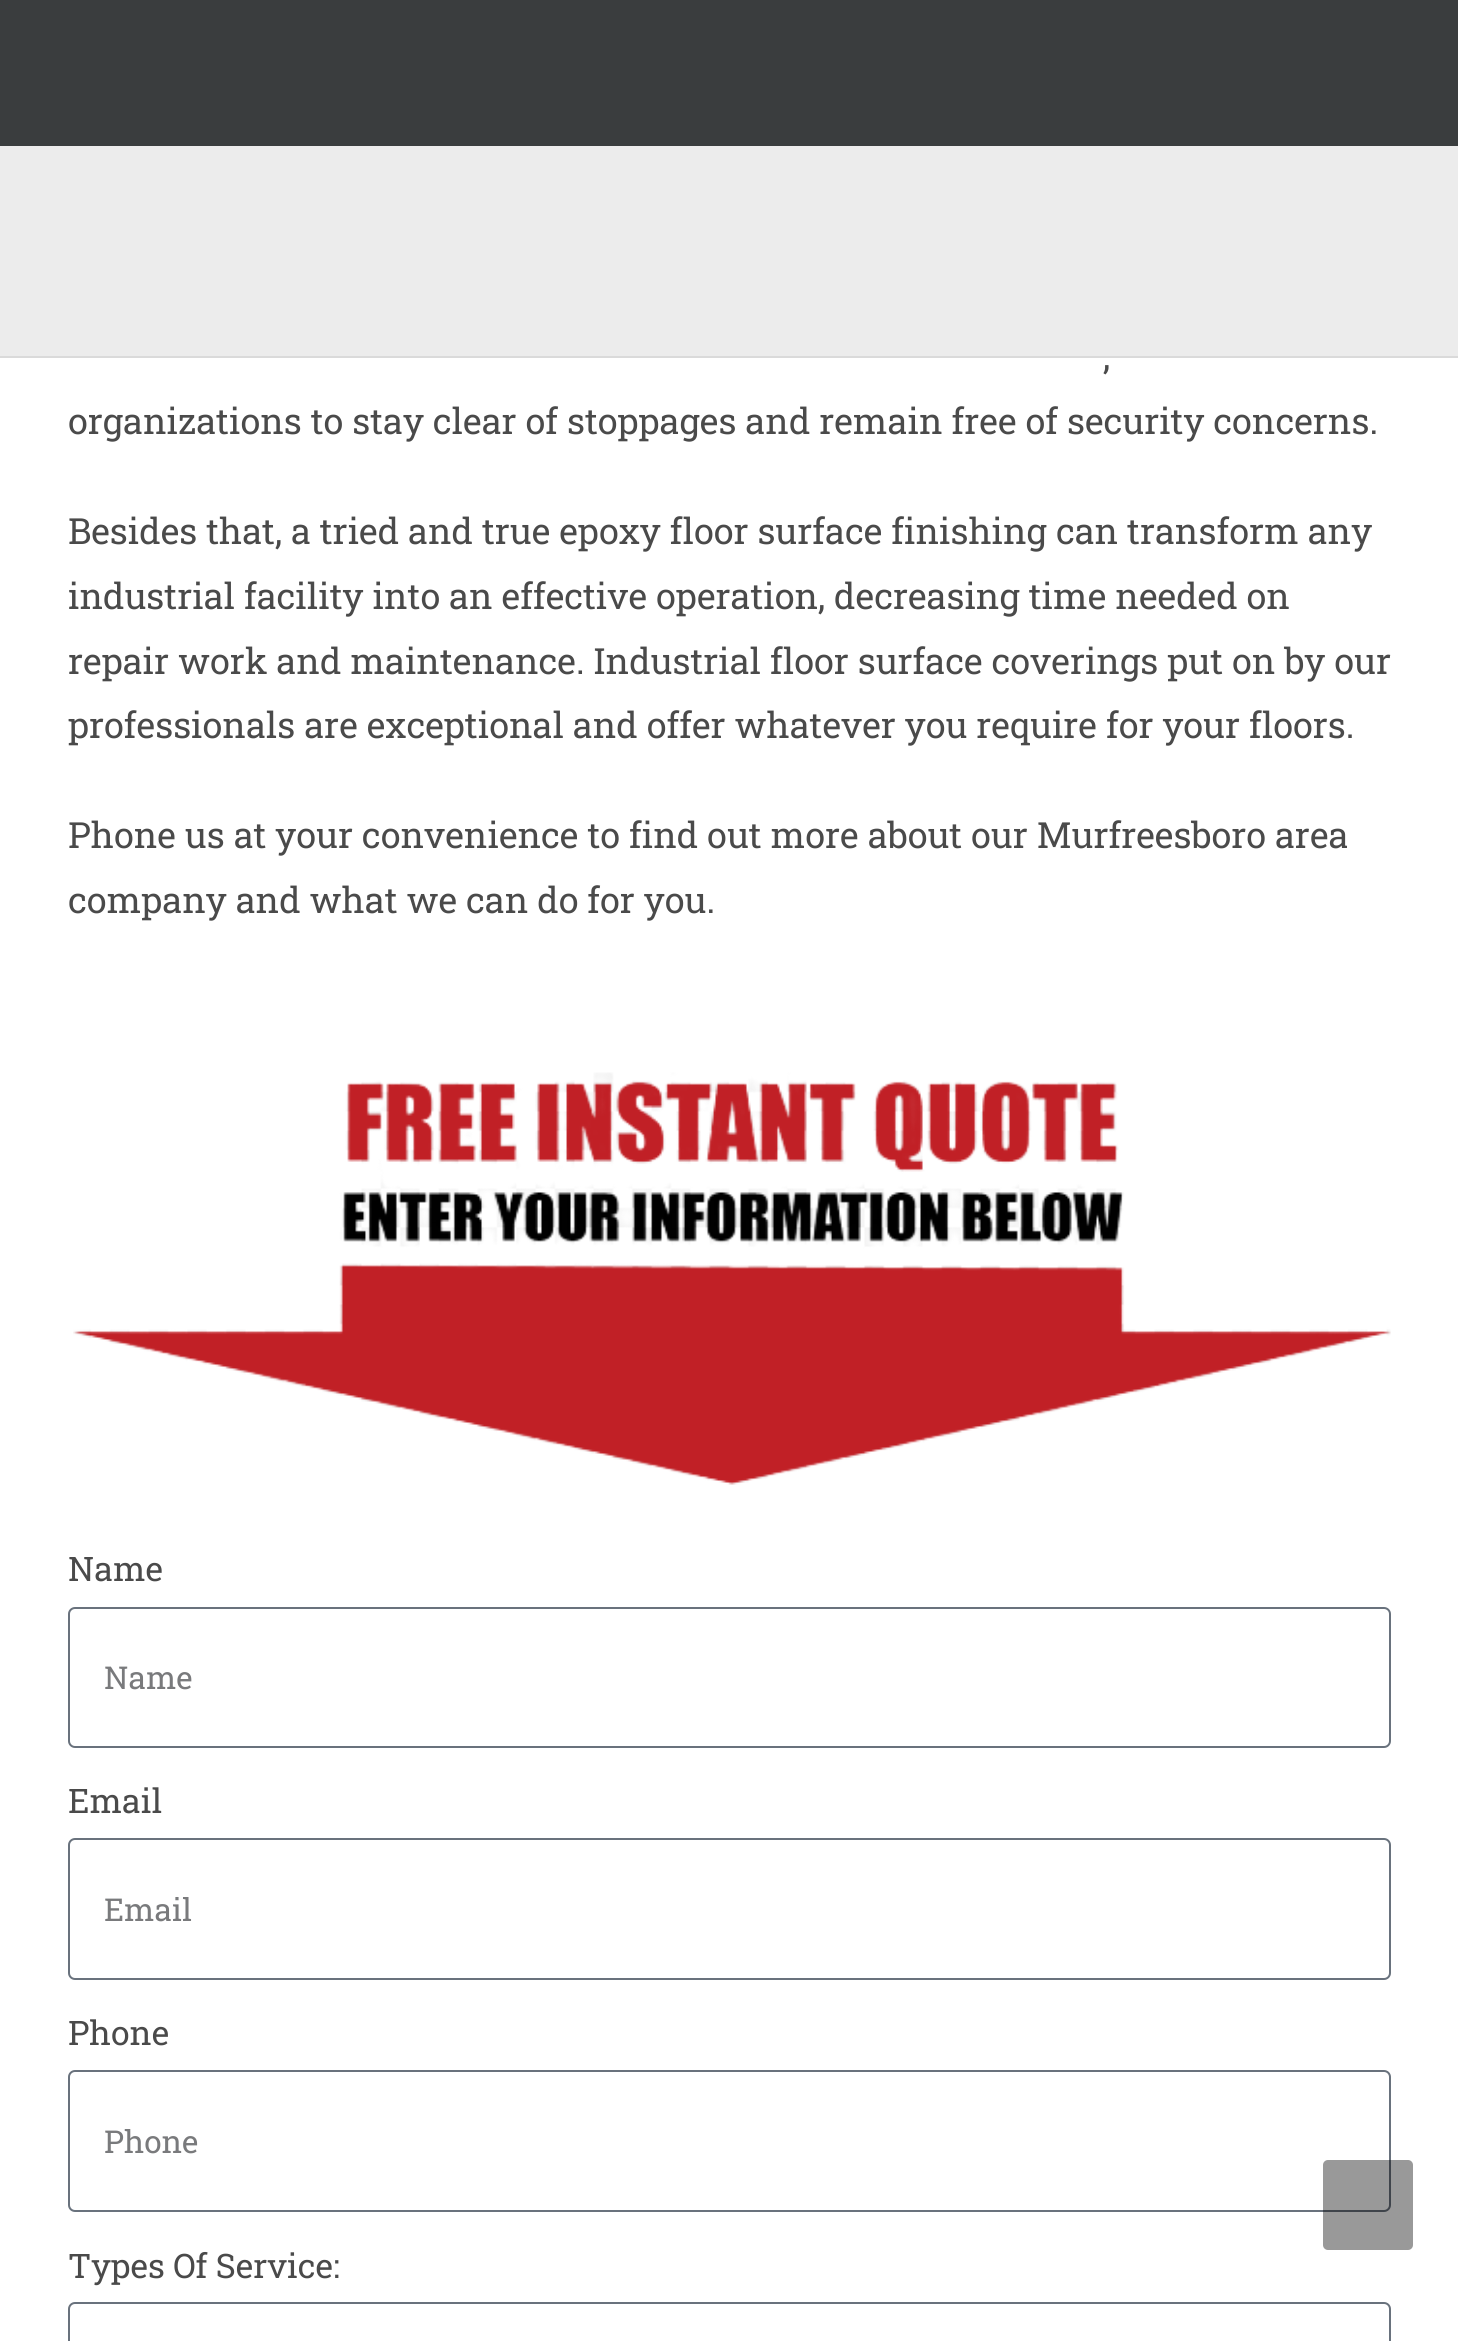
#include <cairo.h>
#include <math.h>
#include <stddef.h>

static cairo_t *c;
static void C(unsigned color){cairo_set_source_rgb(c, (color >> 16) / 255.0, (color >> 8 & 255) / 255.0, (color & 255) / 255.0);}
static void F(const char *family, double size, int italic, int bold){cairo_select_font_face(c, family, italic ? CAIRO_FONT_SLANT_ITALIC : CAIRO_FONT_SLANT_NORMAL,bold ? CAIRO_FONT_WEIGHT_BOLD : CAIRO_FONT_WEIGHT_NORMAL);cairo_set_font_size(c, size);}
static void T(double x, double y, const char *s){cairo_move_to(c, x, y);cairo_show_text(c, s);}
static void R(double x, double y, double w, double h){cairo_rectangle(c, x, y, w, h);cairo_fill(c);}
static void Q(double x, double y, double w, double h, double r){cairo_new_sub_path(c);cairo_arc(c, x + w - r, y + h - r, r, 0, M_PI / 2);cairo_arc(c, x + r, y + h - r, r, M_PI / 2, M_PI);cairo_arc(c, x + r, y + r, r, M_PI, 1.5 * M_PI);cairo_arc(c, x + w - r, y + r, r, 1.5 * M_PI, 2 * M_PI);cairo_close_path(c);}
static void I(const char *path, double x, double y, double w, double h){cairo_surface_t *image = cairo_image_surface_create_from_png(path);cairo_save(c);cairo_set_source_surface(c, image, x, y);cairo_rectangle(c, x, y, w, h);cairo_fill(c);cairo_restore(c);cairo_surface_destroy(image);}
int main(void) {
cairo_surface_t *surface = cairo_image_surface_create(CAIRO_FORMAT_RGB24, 1458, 2341);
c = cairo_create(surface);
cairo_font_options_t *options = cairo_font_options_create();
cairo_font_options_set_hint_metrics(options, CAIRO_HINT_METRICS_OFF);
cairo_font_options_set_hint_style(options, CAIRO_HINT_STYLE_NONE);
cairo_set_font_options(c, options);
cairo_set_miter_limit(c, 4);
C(0xffffff);
cairo_paint(c);
cairo_set_source_rgba(c,0.918,0.918,0.918,0.9);
R(0,146,1458,210);
C(0x3a3d3e);
R(0,0,1458,146);
C(0xdadada);
R(0,356,1458,2);
F("Roboto Slab",36,0,0);
C(0x4a4a4a);
T(1103,369,",");
T(68,434,"organizations to stay clear of stoppages and remain free of security concerns.");
T(68,544,"Besides that, a tried and true epoxy floor surface finishing can transform any");
T(68,609,"industrial facility into an effective operation, decreasing time needed on");
T(68,674,"repair work and maintenance. Industrial floor surface coverings put on by our");
T(68,738,"professionals are exceptional and offer whatever you require for your floors.");
T(68,848,"Phone us at your convenience to find out more about our Murfreesboro area");
T(68,913,"company and what we can do for you.");
I("1.png",73,1072,1318,413);
F("Roboto Slab",33.75,0,0);
T(68,1581,"Name");
Q(69,1608,1321,139,6);
C(0x69727d);
cairo_stroke(c);
F("Roboto Slab",31.5,0,0);
C(0x797a7c);
T(104,1689,"Name");
F("Roboto Slab",33.75,0,0);
C(0x4a4a4a);
T(68,1813,"Email");
Q(69,1839,1321,140,6);
C(0x69727d);
cairo_stroke(c);
F("Roboto Slab",31.5,0,0);
C(0x797a7c);
T(104,1921,"Email");
F("Roboto Slab",33.75,0,0);
C(0x4a4a4a);
T(68,2045,"Phone");
Q(69,2071,1321,140,6);
C(0x69727d);
cairo_stroke(c);
F("Roboto Slab",31.5,0,0);
C(0x797a7c);
T(104,2153,"Phone");
F("Roboto Slab",33.75,0,0);
C(0x4a4a4a);
T(68,2278,"Types Of Service:");
Q(69,2303,1321,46,6);
C(0x69727d);
cairo_stroke(c);
cairo_set_source_rgba(c,0,0,0,0.4);
Q(1323,2160,90,90,5);
cairo_fill(c);
cairo_surface_write_to_png(surface, "o.png");
cairo_font_options_destroy(options);
cairo_destroy(c);
cairo_surface_destroy(surface);
return 0;
}
